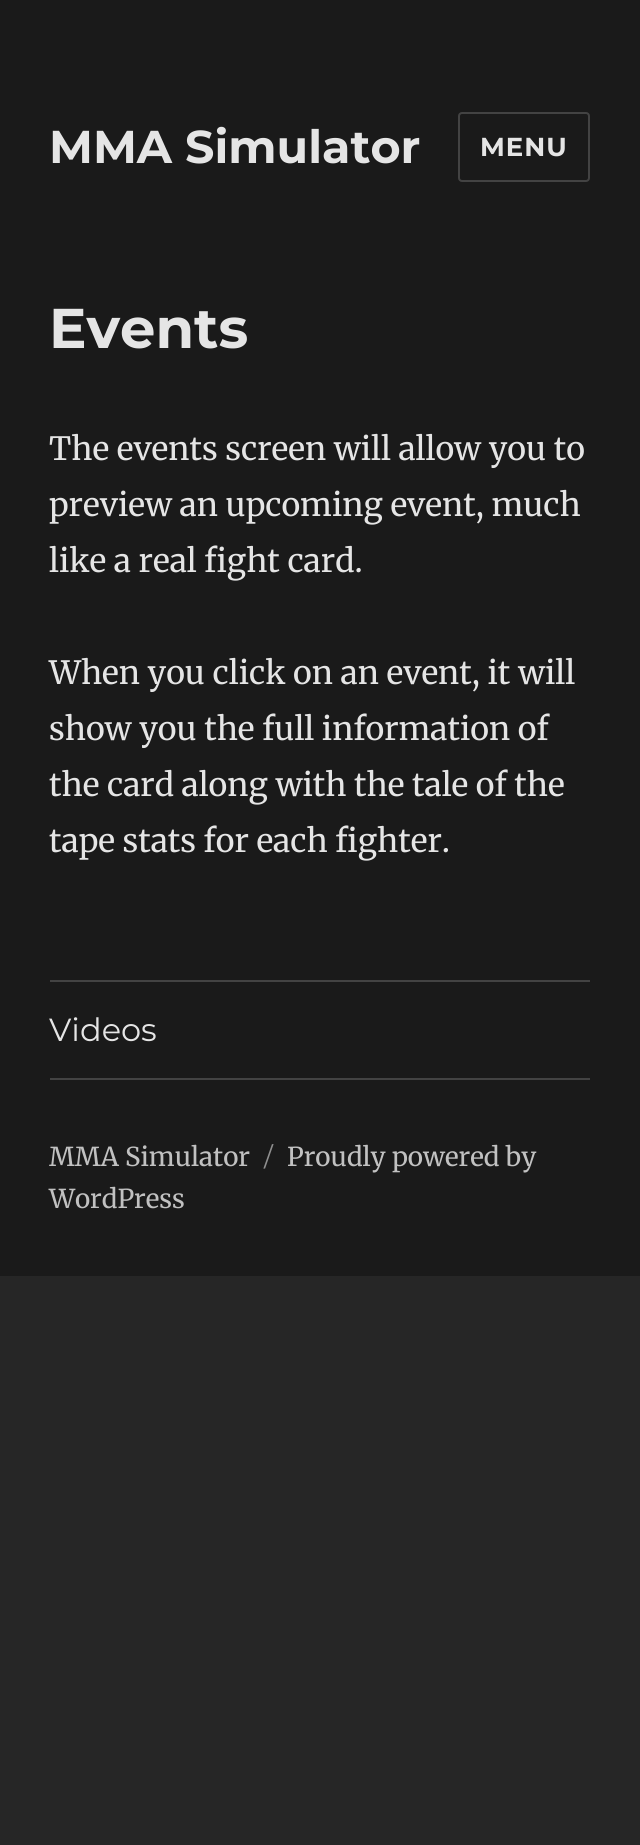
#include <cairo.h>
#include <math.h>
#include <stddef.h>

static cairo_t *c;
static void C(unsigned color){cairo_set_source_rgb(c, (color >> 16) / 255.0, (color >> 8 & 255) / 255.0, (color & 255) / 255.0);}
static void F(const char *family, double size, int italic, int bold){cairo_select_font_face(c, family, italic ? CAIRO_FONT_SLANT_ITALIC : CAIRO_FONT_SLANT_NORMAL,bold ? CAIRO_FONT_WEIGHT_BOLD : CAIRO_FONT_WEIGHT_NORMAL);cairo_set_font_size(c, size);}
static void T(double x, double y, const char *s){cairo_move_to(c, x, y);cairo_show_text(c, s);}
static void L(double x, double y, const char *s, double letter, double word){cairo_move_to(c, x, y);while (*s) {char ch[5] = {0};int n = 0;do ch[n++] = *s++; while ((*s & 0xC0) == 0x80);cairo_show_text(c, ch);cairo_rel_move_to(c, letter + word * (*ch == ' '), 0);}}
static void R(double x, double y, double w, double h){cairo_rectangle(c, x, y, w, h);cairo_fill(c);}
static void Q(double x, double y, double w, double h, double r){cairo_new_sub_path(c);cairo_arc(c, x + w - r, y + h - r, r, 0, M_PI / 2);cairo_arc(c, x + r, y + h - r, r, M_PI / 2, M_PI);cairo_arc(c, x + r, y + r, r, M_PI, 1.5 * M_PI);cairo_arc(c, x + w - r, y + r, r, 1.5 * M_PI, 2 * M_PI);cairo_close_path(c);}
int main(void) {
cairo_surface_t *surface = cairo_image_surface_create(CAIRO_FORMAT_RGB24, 640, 1845);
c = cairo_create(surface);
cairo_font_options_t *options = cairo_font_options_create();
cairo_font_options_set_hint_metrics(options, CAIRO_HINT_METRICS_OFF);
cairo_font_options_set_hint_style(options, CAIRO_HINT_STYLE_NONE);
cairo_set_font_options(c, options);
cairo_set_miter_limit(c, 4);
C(0x262626);
cairo_paint(c);
C(0x1a1a1a);
R(0,0,640,1276);
F("Montserrat",46,0,1);
C(0xe5e5e5);
T(49,163,"MMA Simulator");
Q(459,113,130,68,3);
C(0x434343);
cairo_stroke(c);
F("Montserrat",26,0,1);
C(0xe5e5e5);
L(480,156,"MENU",1,0);
F("Montserrat",56,0,1);
T(49,348,"Events");
F("Merriweather",32,0,0);
T(49,460,"The events screen will allow you to");
T(49,516,"preview an upcoming event, much");
T(49,572,"like a real fight card.");
T(49,684,"When you click on an event, it will");
T(49,740,"show you the full information of");
T(49,796,"the card along with the tale of the");
T(49,852,"tape stats for each fighter.");
C(0x434343);
R(50,1078,540,2);
R(50,980,540,2);
F("Montserrat",32,0,0);
C(0xe5e5e5);
T(49,1041,"Videos");
F("Merriweather",26,0,0);
C(0xc1c1c1);
T(49,1166,"MMA Simulator");
F("Montserrat",26,0,0);
C(0x8f8f8f);
T(264,1166,"/");
F("Merriweather",26,0,0);
C(0xc1c1c1);
T(287,1166,"Proudly powered by");
T(49,1208,"WordPress");
cairo_surface_write_to_png(surface, "o.png");
cairo_font_options_destroy(options);
cairo_destroy(c);
cairo_surface_destroy(surface);
return 0;
}
